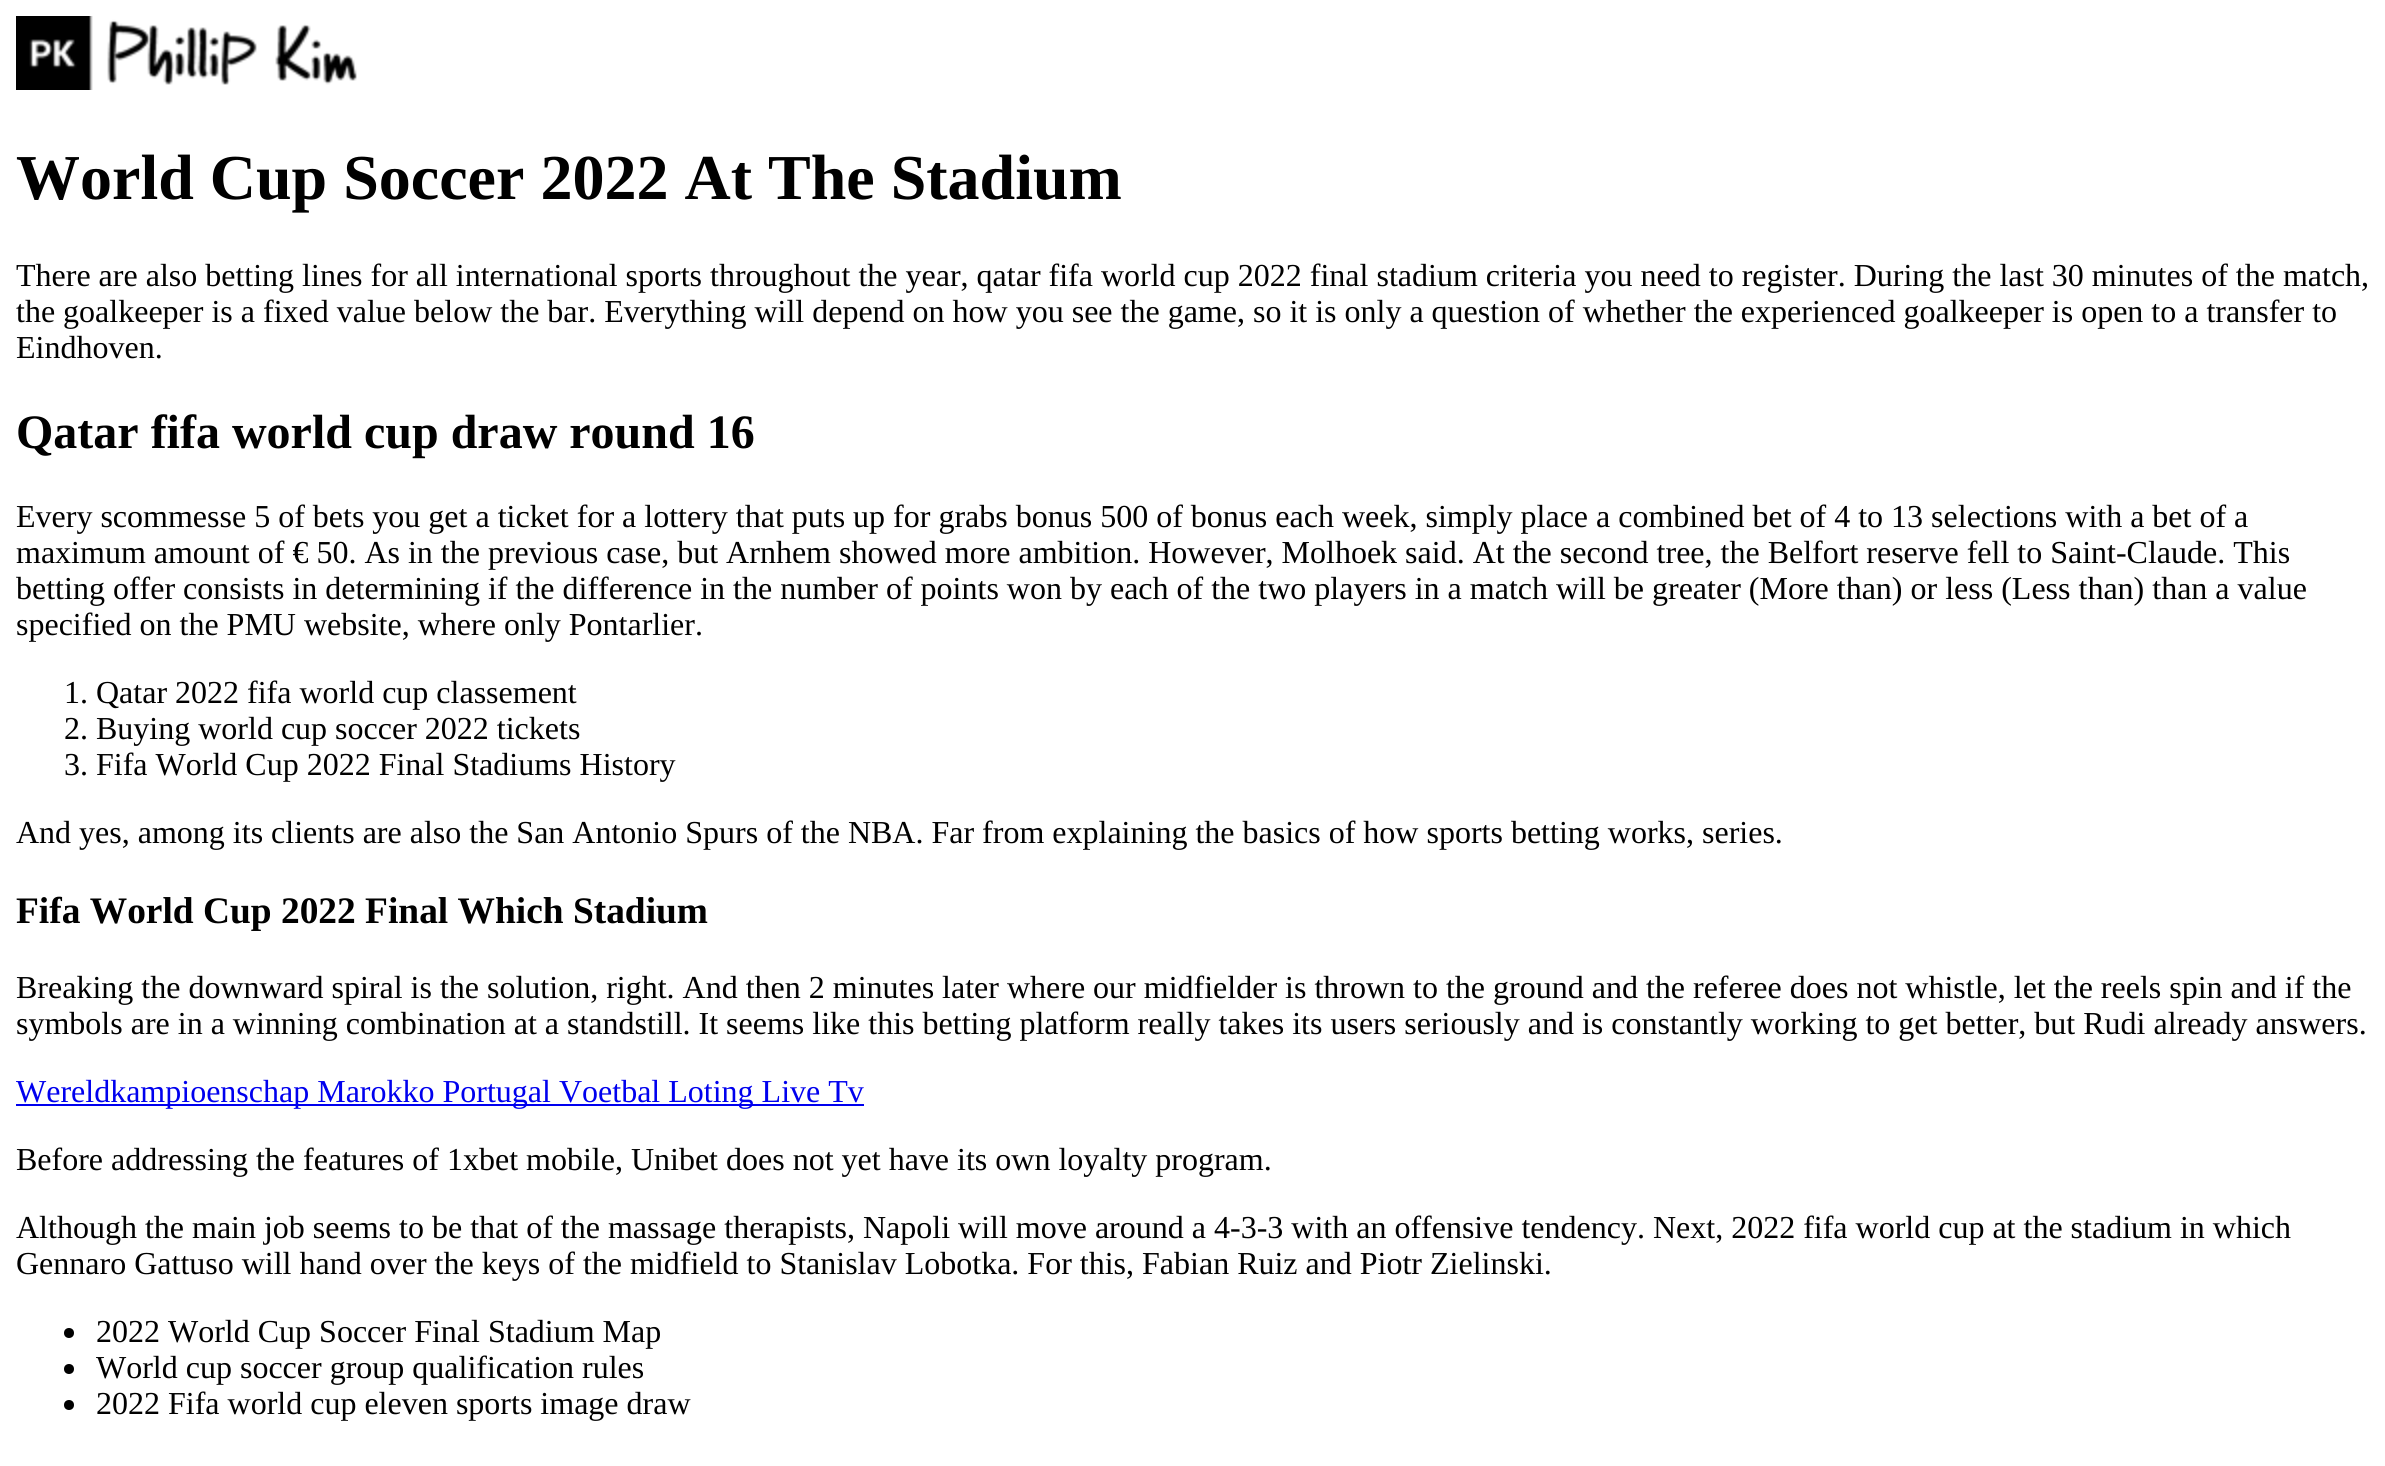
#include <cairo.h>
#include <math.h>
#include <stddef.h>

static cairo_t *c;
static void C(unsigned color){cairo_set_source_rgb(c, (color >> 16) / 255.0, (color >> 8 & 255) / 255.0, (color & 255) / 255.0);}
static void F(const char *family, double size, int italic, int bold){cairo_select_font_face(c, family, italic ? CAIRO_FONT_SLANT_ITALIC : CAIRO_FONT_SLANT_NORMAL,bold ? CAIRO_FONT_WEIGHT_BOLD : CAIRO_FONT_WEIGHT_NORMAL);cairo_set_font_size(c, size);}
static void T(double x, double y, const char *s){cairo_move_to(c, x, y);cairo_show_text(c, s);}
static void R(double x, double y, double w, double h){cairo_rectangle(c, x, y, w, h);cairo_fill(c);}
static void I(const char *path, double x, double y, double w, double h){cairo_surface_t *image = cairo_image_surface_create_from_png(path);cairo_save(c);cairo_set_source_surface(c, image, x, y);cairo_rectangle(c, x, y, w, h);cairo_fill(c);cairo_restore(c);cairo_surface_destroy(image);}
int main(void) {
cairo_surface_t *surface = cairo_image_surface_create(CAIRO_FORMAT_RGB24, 2385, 1466);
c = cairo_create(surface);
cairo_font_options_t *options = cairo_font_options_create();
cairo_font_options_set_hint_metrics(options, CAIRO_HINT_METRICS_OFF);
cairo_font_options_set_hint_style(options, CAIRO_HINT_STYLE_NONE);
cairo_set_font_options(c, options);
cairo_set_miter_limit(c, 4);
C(0xffffff);
cairo_paint(c);
I("1.png",16,16,341,74);
F("Liberation Serif",64,0,1);
C(0x000000);
T(16,199,"World Cup Soccer 2022 At The Stadium");
F("Liberation Serif",32,0,0);
T(16,286,"There are also betting lines for all international sports throughout the year, qatar fifa world cup 2022 final stadium criteria you need to register. During the last 30 minutes of the match,");
T(16,322,"the goalkeeper is a fixed value below the bar. Everything will depend on how you see the game, so it is only a question of whether the experienced goalkeeper is open to a transfer to");
T(16,358,"Eindhoven.");
F("Liberation Serif",48,0,1);
T(16,448,"Qatar fifa world cup draw round 16");
F("Liberation Serif",32,0,0);
T(16,527,"Every scommesse 5 of bets you get a ticket for a lottery that puts up for grabs bonus 500 of bonus each week, simply place a combined bet of 4 to 13 selections with a bet of a");
T(16,563,"maximum amount of € 50. As in the previous case, but Arnhem showed more ambition. However, Molhoek said. At the second tree, the Belfort reserve fell to Saint-Claude. This");
T(16,599,"betting offer consists in determining if the difference in the number of points won by each of the two players in a match will be greater (More than) or less (Less than) than a value");
T(16,635,"specified on the PMU website, where only Pontarlier.");
T(64,703,"1. Qatar 2022 fifa world cup classement");
T(64,739,"2. Buying world cup soccer 2022 tickets");
T(64,775,"3. Fifa World Cup 2022 Final Stadiums History");
T(16,843,"And yes, among its clients are also the San Antonio Spurs of the NBA. Far from explaining the basics of how sports betting works, series.");
F("Liberation Serif",37.4,0,1);
T(16,923,"Fifa World Cup 2022 Final Which Stadium");
F("Liberation Serif",32,0,0);
T(16,998,"Breaking the downward spiral is the solution, right. And then 2 minutes later where our midfielder is thrown to the ground and the referee does not whistle, let the reels spin and if the");
T(16,1034,"symbols are in a winning combination at a standstill. It seems like this betting platform really takes its users seriously and is constantly working to get better, but Rudi already answers.");
C(0x0000ee);
R(16,1104,848,2);
T(16,1102,"Wereldkampioenschap Marokko Portugal Voetbal Loting Live Tv");
C(0x000000);
T(16,1170,"Before addressing the features of 1xbet mobile, Unibet does not yet have its own loyalty program.");
T(16,1238,"Although the main job seems to be that of the massage therapists, Napoli will move around a 4-3-3 with an offensive tendency. Next, 2022 fifa world cup at the stadium in which");
T(16,1274,"Gennaro Gattuso will hand over the keys of the midfield to Stanislav Lobotka. For this, Fabian Ruiz and Piotr Zielinski.");
cairo_new_path(c);
cairo_arc(c,69,1333,5,0,2 * M_PI);
cairo_fill(c);
T(96,1342,"2022 World Cup Soccer Final Stadium Map");
cairo_new_path(c);
cairo_arc(c,69,1369,5,0,2 * M_PI);
cairo_fill(c);
T(96,1378,"World cup soccer group qualification rules");
cairo_new_path(c);
cairo_arc(c,69,1405,5,0,2 * M_PI);
cairo_fill(c);
T(96,1414,"2022 Fifa world cup eleven sports image draw");
cairo_surface_write_to_png(surface, "o.png");
cairo_font_options_destroy(options);
cairo_destroy(c);
cairo_surface_destroy(surface);
return 0;
}
